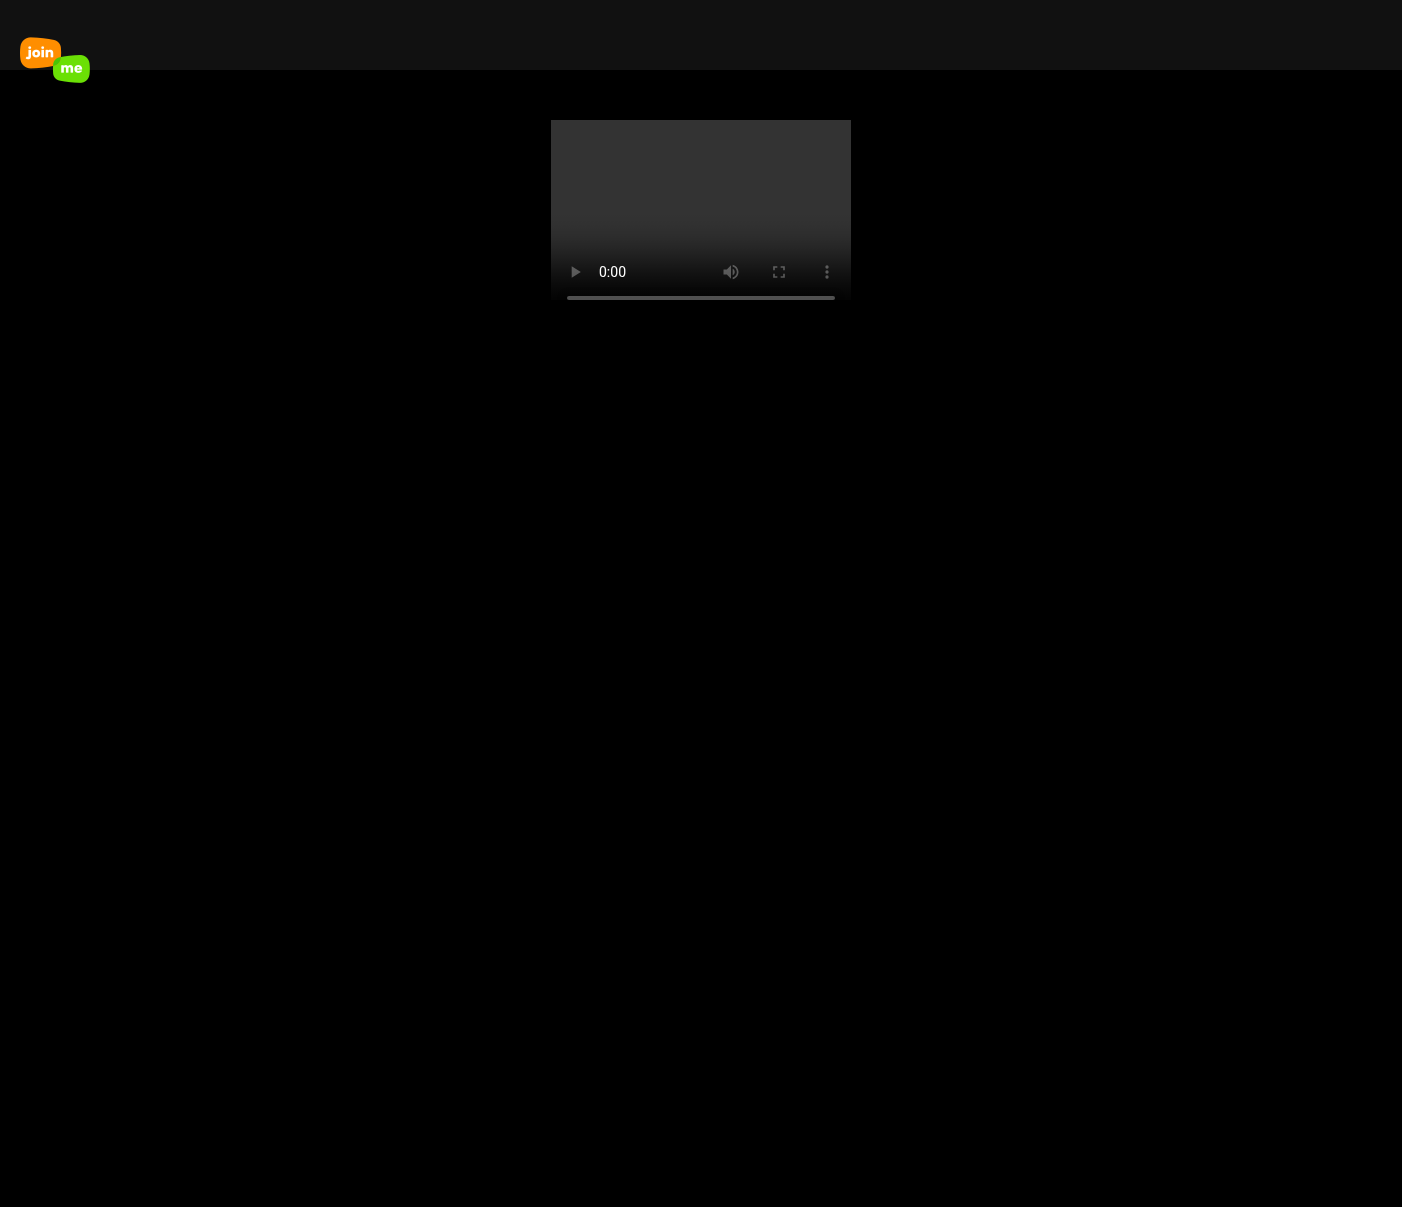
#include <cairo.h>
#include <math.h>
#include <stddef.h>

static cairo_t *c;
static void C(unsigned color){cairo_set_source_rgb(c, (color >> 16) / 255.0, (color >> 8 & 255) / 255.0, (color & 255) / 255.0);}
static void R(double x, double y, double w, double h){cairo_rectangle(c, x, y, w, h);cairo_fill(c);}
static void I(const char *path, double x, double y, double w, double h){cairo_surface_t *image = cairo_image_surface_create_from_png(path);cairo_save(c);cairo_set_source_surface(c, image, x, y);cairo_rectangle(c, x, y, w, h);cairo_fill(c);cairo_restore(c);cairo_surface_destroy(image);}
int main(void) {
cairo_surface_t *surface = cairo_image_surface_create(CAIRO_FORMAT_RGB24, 1402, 1207);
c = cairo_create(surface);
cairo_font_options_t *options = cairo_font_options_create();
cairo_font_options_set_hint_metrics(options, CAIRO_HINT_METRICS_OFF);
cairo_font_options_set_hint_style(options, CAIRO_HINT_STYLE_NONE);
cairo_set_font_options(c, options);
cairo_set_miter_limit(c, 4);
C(0x000000);
cairo_paint(c);
C(0x111111);
R(0,0,1402,70);
I("1.png",20,37,70,46);
I("2.png",551,120,300,180);
cairo_surface_write_to_png(surface, "o.png");
cairo_font_options_destroy(options);
cairo_destroy(c);
cairo_surface_destroy(surface);
return 0;
}
